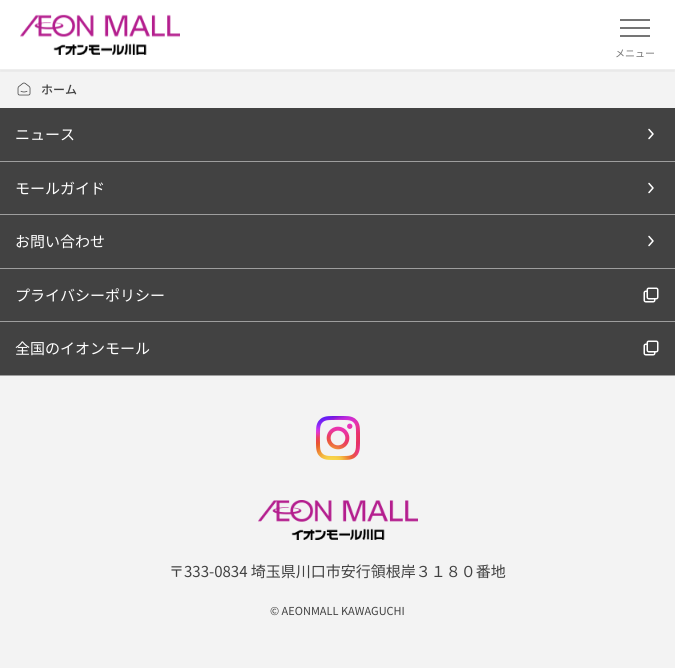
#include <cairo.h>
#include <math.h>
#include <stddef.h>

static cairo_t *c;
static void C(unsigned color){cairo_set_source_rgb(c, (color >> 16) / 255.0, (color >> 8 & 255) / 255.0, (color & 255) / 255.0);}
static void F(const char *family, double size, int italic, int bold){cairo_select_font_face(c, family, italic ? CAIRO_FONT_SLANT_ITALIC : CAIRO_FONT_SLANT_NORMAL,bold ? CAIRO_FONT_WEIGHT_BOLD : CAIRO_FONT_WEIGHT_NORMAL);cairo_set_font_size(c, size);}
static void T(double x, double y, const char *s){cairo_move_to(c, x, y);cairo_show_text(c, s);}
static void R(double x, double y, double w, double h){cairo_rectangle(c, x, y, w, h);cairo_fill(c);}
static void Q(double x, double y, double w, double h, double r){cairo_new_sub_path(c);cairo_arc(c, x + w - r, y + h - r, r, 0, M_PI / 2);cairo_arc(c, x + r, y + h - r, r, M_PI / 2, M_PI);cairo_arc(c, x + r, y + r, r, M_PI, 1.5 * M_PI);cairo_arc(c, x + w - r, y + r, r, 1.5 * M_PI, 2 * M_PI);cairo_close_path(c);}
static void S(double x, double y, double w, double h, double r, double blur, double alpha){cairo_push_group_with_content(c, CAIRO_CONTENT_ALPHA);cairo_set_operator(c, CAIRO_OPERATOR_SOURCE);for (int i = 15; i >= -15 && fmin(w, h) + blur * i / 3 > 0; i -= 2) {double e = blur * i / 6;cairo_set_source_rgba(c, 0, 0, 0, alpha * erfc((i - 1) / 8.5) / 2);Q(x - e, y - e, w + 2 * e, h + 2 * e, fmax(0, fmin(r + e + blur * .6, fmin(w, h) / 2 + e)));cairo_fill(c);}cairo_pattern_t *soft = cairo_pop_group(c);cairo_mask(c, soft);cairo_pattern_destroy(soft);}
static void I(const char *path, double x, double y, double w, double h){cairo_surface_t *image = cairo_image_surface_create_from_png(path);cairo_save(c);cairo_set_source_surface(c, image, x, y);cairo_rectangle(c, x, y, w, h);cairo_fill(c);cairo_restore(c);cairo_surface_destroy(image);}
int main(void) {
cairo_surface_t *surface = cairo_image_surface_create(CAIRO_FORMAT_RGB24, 675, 668);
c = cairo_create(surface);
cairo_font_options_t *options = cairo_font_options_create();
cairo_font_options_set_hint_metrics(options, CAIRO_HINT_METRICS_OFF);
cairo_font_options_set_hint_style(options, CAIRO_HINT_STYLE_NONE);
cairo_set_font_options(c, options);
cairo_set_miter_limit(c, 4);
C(0xffffff);
cairo_paint(c);
C(0xf3f3f3);
R(0,70,675,38);
cairo_save(c);
cairo_rectangle(c,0,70,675,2);
cairo_clip(c);
C(0x000000);
S(0,2,675,70,0,1.5,.05);
cairo_restore(c);
C(0xeeeeee);
R(0,69,675,1);
I("1.png",20,14,160,41);
C(0x757575);
R(620,19,30,2);
R(620,27,30,2);
R(620,35,30,2);
F("Noto Sans JP",10,0,0);
T(615,57,"メニュー");
I("2.png",17,82,14,14);
F("Noto Sans JP Medium",12,0,0);
C(0x424242);
T(41,94,"ホーム");
R(0,108,675,267);
C(0x9e9e9e);
R(0,161,675,1);
F("Noto Sans JP",15,0,0);
C(0xffffff);
T(15,140,"ニュース");
cairo_new_path(c);
cairo_move_to(c,649,129.5);
cairo_line_to(c,653,134);
cairo_line_to(c,649,138.5);
cairo_set_line_width(c,1.5);
cairo_set_line_cap(c,CAIRO_LINE_CAP_ROUND);
cairo_set_line_join(c,CAIRO_LINE_JOIN_ROUND);
cairo_stroke(c);
C(0x9e9e9e);
R(0,214,675,1);
C(0xffffff);
T(15,194,"モールガイド");
cairo_new_path(c);
cairo_move_to(c,649,183.5);
cairo_line_to(c,653,188);
cairo_line_to(c,649,192.5);
cairo_stroke(c);
C(0x9e9e9e);
R(0,268,675,1);
C(0xffffff);
T(15,247,"お問い合わせ");
cairo_new_path(c);
cairo_move_to(c,649,236.5);
cairo_line_to(c,653,241);
cairo_line_to(c,649,245.5);
cairo_stroke(c);
C(0x9e9e9e);
R(0,321,675,1);
C(0xffffff);
T(15,301,"プライバシーポリシー");
I("3.png",643,287,16,16);
C(0x9e9e9e);
R(0,375,675,1);
C(0xffffff);
T(15,354,"全国のイオンモール");
I("3.png",643,340,16,16);
C(0xf3f3f3);
R(0,376,675,292);
I("4.png",316,416,44,44);
I("5.png",258,500,160,40);
C(0x424242);
T(169,577,"〒333-0834 埼玉県川口市安行領根岸３１８０番地");
F("Noto Sans JP",11,0,0);
T(270,615,"© AEONMALL KAWAGUCHI");
cairo_surface_write_to_png(surface, "o.png");
cairo_font_options_destroy(options);
cairo_destroy(c);
cairo_surface_destroy(surface);
return 0;
}
